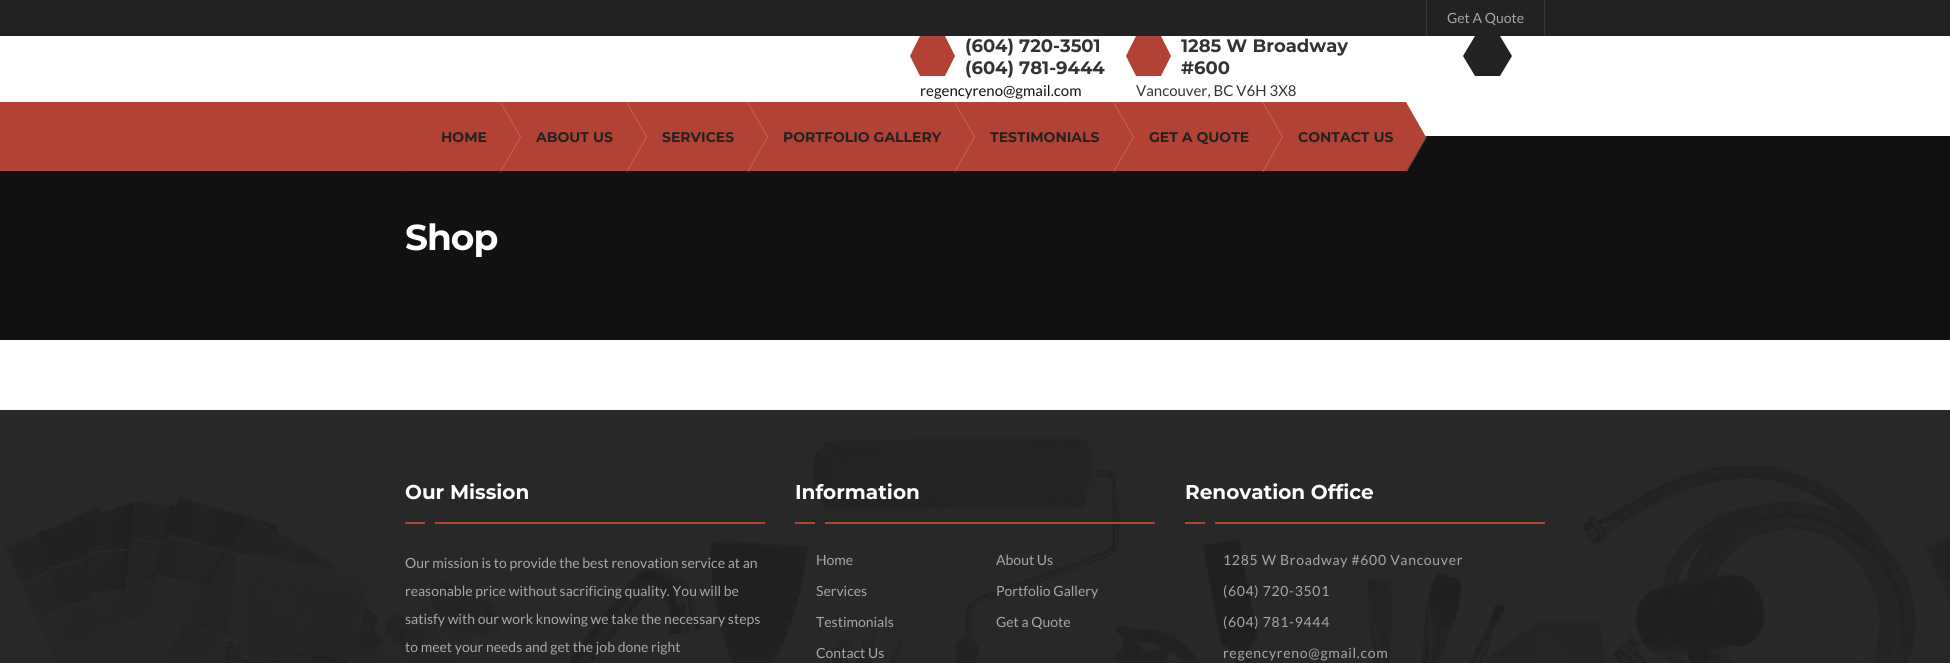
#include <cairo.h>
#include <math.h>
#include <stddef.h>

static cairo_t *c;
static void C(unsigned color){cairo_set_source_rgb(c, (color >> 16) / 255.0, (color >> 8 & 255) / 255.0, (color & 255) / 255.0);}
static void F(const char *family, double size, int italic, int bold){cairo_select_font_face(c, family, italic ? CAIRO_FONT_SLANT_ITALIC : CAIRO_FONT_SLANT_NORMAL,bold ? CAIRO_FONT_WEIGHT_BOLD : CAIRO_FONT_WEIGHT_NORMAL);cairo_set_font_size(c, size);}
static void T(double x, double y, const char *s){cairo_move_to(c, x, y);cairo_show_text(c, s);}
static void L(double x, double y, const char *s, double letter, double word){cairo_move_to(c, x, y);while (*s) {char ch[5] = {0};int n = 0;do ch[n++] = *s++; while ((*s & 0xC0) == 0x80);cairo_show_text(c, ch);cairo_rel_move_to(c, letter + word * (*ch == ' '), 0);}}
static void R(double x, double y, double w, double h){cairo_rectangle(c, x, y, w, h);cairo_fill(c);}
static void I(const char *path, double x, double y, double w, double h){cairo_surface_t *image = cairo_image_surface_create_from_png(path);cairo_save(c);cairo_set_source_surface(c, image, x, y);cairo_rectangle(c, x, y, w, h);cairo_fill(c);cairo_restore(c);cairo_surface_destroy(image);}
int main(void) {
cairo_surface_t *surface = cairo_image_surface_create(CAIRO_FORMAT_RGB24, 1950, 663);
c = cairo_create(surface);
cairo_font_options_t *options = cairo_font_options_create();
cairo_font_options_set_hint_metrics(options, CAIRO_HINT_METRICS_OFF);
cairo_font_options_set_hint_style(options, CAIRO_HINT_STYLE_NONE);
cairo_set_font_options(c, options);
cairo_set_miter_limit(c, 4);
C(0xffffff);
cairo_paint(c);
C(0x292929);
R(0,410,1950,24);
C(0x222222);
R(0,0,1950,36);
C(0x383838);
R(1544,0,1,36);
R(1426,0,1,36);
F("Lato",14,0,0);
C(0xa7a7a7);
T(1447,23,"Get A Quote");
C(0xb24234);
R(920,36,25,40);
cairo_new_path(c);
cairo_move_to(c,945,76);
cairo_line_to(c,945,36);
cairo_line_to(c,955,56);
cairo_close_path(c);
cairo_fill(c);
cairo_new_path(c);
cairo_move_to(c,920,36);
cairo_line_to(c,920,76);
cairo_line_to(c,910,56);
cairo_close_path(c);
cairo_fill(c);
F("Montserrat",18,0,1);
C(0x333333);
T(965,52,"(604) 720-3501");
T(965,74,"(604) 781-9444");
F("Lato",15,0,0);
C(0x111111);
T(920,96,"regencyreno@gmail.com");
C(0xb24234);
R(1136,36,25,40);
cairo_new_path(c);
cairo_move_to(c,1161,76);
cairo_line_to(c,1161,36);
cairo_line_to(c,1171,56);
cairo_close_path(c);
cairo_fill(c);
cairo_new_path(c);
cairo_move_to(c,1136,36);
cairo_line_to(c,1136,76);
cairo_line_to(c,1126,56);
cairo_close_path(c);
cairo_fill(c);
F("Montserrat",18,0,1);
C(0x333333);
T(1181,52,"1285 W Broadway");
T(1181,74,"#600");
F("Lato",15,0,0);
T(1136,96,"Vancouver, BC V6H 3X8");
C(0x222222);
R(1475,36,25,40);
cairo_new_path(c);
cairo_move_to(c,1475,36);
cairo_line_to(c,1475,76);
cairo_line_to(c,1463,56);
cairo_close_path(c);
cairo_move_to(c,1500,76);
cairo_line_to(c,1500,36);
cairo_line_to(c,1512,56);
cairo_close_path(c);
cairo_fill(c);
C(0x111111);
R(0,136,1950,204);
C(0xb24234);
R(0,102,1406,69);
cairo_new_path(c);
cairo_move_to(c,405,172);
cairo_line_to(c,405,102);
cairo_line_to(c,425,137);
cairo_close_path(c);
cairo_fill(c);
C(0xc1685d);
cairo_new_path(c);
cairo_move_to(c,501,172);
cairo_line_to(c,501,102);
cairo_line_to(c,521,137);
cairo_close_path(c);
cairo_fill(c);
C(0xb24234);
cairo_new_path(c);
cairo_move_to(c,500,172);
cairo_line_to(c,500,102);
cairo_line_to(c,520,137);
cairo_close_path(c);
cairo_fill(c);
F("Montserrat",14,0,1);
C(0x222222);
T(441,142,"HOME");
C(0xc1685d);
cairo_new_path(c);
cairo_move_to(c,627,172);
cairo_line_to(c,627,102);
cairo_line_to(c,647,137);
cairo_close_path(c);
cairo_fill(c);
C(0xb24234);
cairo_new_path(c);
cairo_move_to(c,626,172);
cairo_line_to(c,626,102);
cairo_line_to(c,646,137);
cairo_close_path(c);
cairo_fill(c);
C(0x222222);
T(536,142,"ABOUT US");
C(0xc1685d);
cairo_new_path(c);
cairo_move_to(c,748,172);
cairo_line_to(c,748,102);
cairo_line_to(c,768,137);
cairo_close_path(c);
cairo_fill(c);
C(0xb24234);
cairo_new_path(c);
cairo_move_to(c,747,172);
cairo_line_to(c,747,102);
cairo_line_to(c,767,137);
cairo_close_path(c);
cairo_fill(c);
C(0x222222);
T(662,142,"SERVICES");
C(0xc1685d);
cairo_new_path(c);
cairo_move_to(c,955,172);
cairo_line_to(c,955,102);
cairo_line_to(c,975,137);
cairo_close_path(c);
cairo_fill(c);
C(0xb24234);
cairo_new_path(c);
cairo_move_to(c,954,172);
cairo_line_to(c,954,102);
cairo_line_to(c,974,137);
cairo_close_path(c);
cairo_fill(c);
C(0x222222);
T(783,142,"PORTFOLIO GALLERY");
C(0xc1685d);
cairo_new_path(c);
cairo_move_to(c,1114,172);
cairo_line_to(c,1114,102);
cairo_line_to(c,1134,137);
cairo_close_path(c);
cairo_fill(c);
C(0xb24234);
cairo_new_path(c);
cairo_move_to(c,1113,172);
cairo_line_to(c,1113,102);
cairo_line_to(c,1133,137);
cairo_close_path(c);
cairo_fill(c);
C(0x222222);
T(990,142,"TESTIMONIALS");
C(0xc1685d);
cairo_new_path(c);
cairo_move_to(c,1263,172);
cairo_line_to(c,1263,102);
cairo_line_to(c,1283,137);
cairo_close_path(c);
cairo_fill(c);
C(0xb24234);
cairo_new_path(c);
cairo_move_to(c,1262,172);
cairo_line_to(c,1262,102);
cairo_line_to(c,1282,137);
cairo_close_path(c);
cairo_fill(c);
C(0x222222);
T(1149,142,"GET A QUOTE");
cairo_set_source_rgba(c,1,1,1,0.2);
cairo_new_path(c);
cairo_move_to(c,1407,172);
cairo_line_to(c,1407,102);
cairo_line_to(c,1427,137);
cairo_close_path(c);
cairo_fill(c);
C(0xb24234);
cairo_new_path(c);
cairo_move_to(c,1406,172);
cairo_line_to(c,1406,102);
cairo_line_to(c,1426,137);
cairo_close_path(c);
cairo_fill(c);
C(0x222222);
T(1298,142,"CONTACT US");
F("Montserrat",36,0,1);
C(0xffffff);
L(405,250,"Shop",-1,0);
I("1.png",0,434,1950,229);
F("Montserrat",20,0,1);
T(405,499,"Our Mission");
C(0xb24234);
R(405,522,20,2);
R(435,522,330,2);
F("Lato",14,0,0);
C(0xa7a7a7);
T(405,568,"Our mission is to provide the best renovation service at an");
T(405,596,"reasonable price without sacrificing quality. You will be");
T(405,624,"satisfy with our work knowing we take the necessary steps");
T(405,652,"to meet your needs and get the job done right");
F("Montserrat",20,0,1);
C(0xffffff);
T(795,499,"Information");
C(0xb24234);
R(795,522,20,2);
R(825,522,330,2);
F("Lato",14,0,0);
C(0xa7a7a7);
T(816,565,"Home");
T(996,565,"About Us");
T(816,596,"Services");
T(996,596,"Portfolio Gallery");
T(816,627,"Testimonials");
T(996,627,"Get a Quote");
T(816,658,"Contact Us");
F("Montserrat",20,0,1);
C(0xffffff);
T(1185,499,"Renovation Office");
C(0xb24234);
R(1185,522,20,2);
R(1215,522,330,2);
F("Lato",14,0,0);
C(0xa7a7a7);
L(1223,565,"1285 W Broadway #600 Vancouver",.7,0);
L(1223,596,"(604) 720-3501",.7,0);
L(1223,627,"(604) 781-9444",.7,0);
L(1223,658,"regencyreno@gmail.com",.7,0);
cairo_surface_write_to_png(surface, "o.png");
cairo_font_options_destroy(options);
cairo_destroy(c);
cairo_surface_destroy(surface);
return 0;
}
